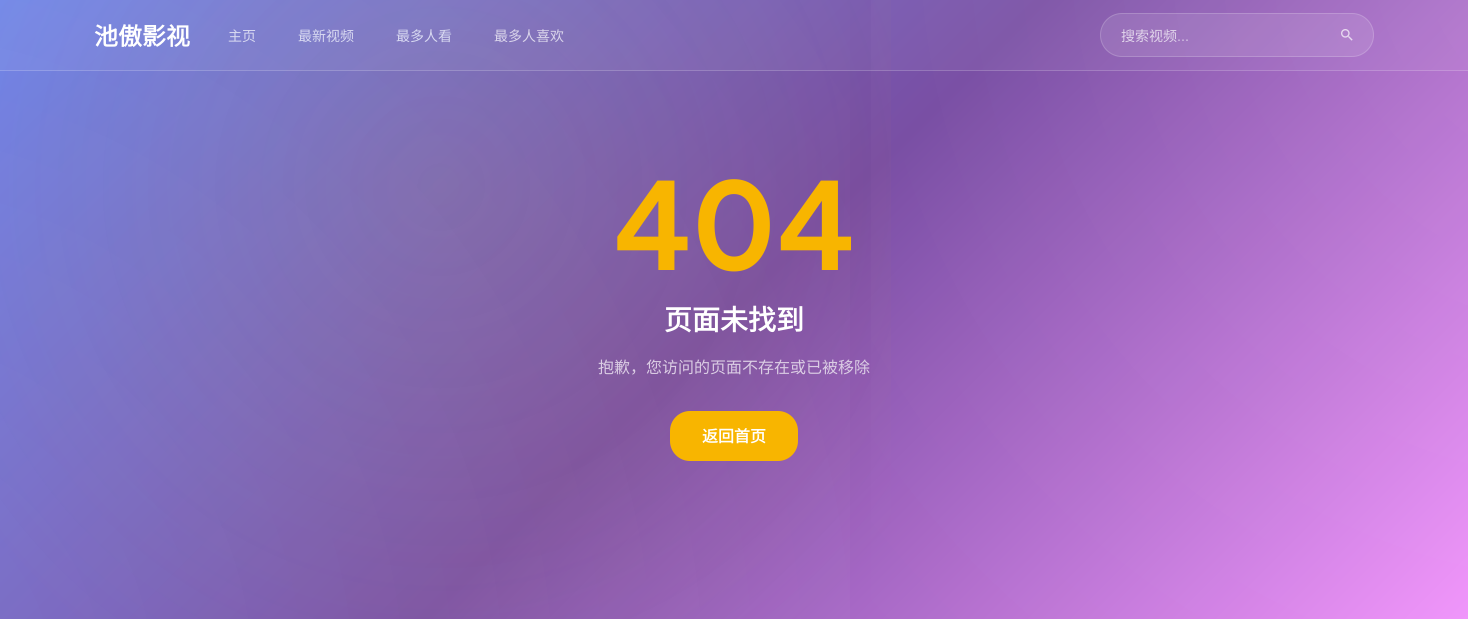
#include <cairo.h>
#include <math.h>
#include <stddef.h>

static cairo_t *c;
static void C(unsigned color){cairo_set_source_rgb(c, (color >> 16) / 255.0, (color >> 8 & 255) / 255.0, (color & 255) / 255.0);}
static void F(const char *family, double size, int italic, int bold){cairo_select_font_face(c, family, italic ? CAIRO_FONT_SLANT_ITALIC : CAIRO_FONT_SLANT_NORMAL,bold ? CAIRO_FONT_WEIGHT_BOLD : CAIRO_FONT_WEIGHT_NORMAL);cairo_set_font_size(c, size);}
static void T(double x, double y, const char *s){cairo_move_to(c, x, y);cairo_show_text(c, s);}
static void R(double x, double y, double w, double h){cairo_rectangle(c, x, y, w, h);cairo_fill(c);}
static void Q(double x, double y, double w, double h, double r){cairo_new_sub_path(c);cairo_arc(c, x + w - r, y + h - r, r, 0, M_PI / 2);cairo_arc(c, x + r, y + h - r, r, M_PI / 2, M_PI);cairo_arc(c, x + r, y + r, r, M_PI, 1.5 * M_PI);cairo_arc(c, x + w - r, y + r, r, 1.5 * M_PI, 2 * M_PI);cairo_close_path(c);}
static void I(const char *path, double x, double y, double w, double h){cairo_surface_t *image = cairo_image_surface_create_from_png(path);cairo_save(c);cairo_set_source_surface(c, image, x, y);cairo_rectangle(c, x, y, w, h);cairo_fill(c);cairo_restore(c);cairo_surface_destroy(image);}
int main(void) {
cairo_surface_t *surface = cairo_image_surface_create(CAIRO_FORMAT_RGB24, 1468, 619);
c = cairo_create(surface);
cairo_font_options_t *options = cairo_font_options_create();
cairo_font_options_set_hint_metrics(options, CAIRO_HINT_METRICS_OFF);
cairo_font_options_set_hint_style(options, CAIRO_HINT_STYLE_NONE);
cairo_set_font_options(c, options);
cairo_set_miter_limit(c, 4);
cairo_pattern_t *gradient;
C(0xffffff);
cairo_paint(c);
gradient = cairo_pattern_create_linear(212,-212,1256,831);
cairo_pattern_add_color_stop_rgba(gradient,0,0.4,0.494,0.918,1);
cairo_pattern_add_color_stop_rgba(gradient,.5,0.463,0.294,0.635,1);
cairo_pattern_add_color_stop_rgba(gradient,1,0.941,0.576,0.984,1);
cairo_set_source(c,gradient);
cairo_pattern_destroy(gradient);
R(0,0,1468,619);
gradient = cairo_pattern_create_radial(440,186,0,440,186,1912);
cairo_pattern_add_color_stop_rgba(gradient,0,0.973,0.71,0,.1);
cairo_pattern_add_color_stop_rgba(gradient,.3,0.973,0.71,0,0);
cairo_set_source(c,gradient);
cairo_pattern_destroy(gradient);
R(0,0,891,619);
gradient = cairo_pattern_create_radial(1615,-61,0,1615,-61,2549);
cairo_pattern_add_color_stop_rgba(gradient,0,1,1,1,.08);
cairo_pattern_add_color_stop_rgba(gradient,.4,1,1,1,0);
cairo_set_source(c,gradient);
cairo_pattern_destroy(gradient);
R(871,0,597,619);
gradient = cairo_pattern_create_radial(-147,681,0,-147,681,2549);
cairo_pattern_add_color_stop_rgba(gradient,0,1,1,1,.1);
cairo_pattern_add_color_stop_rgba(gradient,.5,1,1,1,0);
cairo_set_source(c,gradient);
cairo_pattern_destroy(gradient);
R(0,0,850,619);
cairo_set_source_rgba(c,1,1,1,0.05);
R(0,0,1468,71);
cairo_set_source_rgba(c,1,1,1,0.18);
R(0,70,1468,1);
F("Noto Sans CJK SC",24,0,1);
C(0xffffff);
T(94,45,"池傲影视");
F("Noto Sans CJK SC",14,0,0);
C(0xd8d9f1);
T(228,41,"主页");
T(298,41,"最新视频");
T(396,41,"最多人看");
C(0xdad5eb);
T(494,41,"最多人喜欢");
cairo_set_source_rgba(c,1,1,1,0.1);
Q(1100,13,274,44,22);
cairo_fill(c);
Q(1100.5,13.5,273,43,21.5);
cairo_set_source_rgba(c,1,1,1,0.18);
cairo_set_line_width(c,1);
cairo_stroke(c);
C(0xe1d5eb);
T(1121,41,"搜索视频");
F("Plus Jakarta Sans",14,0,0);
T(1177,41,"...");
I("1.png",1341,29,12,12);
F("Plus Jakarta Sans",120,0,1);
C(0xf8b500);
T(613,270,"404");
F("Noto Sans CJK SC",28,0,1);
C(0xffffff);
T(664,330,"页面未找到");
F("Noto Sans CJK SC",16,0,0);
C(0xdbcde4);
T(598,373,"抱歉，您访问的页面不存在或已被移除");
C(0xf8b500);
Q(670,411,128,50,20);
cairo_fill(c);
F("Noto Sans CJK SC",16,0,1);
C(0xffffff);
T(702,442,"返回首页");
cairo_surface_write_to_png(surface, "o.png");
cairo_font_options_destroy(options);
cairo_destroy(c);
cairo_surface_destroy(surface);
return 0;
}
